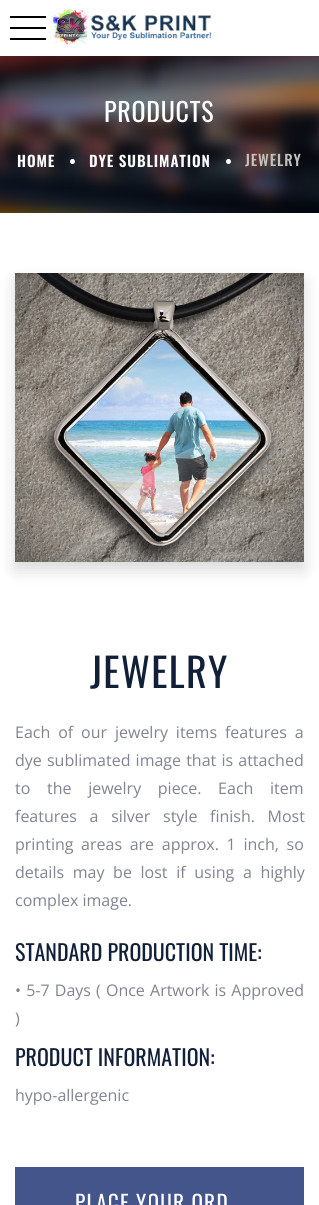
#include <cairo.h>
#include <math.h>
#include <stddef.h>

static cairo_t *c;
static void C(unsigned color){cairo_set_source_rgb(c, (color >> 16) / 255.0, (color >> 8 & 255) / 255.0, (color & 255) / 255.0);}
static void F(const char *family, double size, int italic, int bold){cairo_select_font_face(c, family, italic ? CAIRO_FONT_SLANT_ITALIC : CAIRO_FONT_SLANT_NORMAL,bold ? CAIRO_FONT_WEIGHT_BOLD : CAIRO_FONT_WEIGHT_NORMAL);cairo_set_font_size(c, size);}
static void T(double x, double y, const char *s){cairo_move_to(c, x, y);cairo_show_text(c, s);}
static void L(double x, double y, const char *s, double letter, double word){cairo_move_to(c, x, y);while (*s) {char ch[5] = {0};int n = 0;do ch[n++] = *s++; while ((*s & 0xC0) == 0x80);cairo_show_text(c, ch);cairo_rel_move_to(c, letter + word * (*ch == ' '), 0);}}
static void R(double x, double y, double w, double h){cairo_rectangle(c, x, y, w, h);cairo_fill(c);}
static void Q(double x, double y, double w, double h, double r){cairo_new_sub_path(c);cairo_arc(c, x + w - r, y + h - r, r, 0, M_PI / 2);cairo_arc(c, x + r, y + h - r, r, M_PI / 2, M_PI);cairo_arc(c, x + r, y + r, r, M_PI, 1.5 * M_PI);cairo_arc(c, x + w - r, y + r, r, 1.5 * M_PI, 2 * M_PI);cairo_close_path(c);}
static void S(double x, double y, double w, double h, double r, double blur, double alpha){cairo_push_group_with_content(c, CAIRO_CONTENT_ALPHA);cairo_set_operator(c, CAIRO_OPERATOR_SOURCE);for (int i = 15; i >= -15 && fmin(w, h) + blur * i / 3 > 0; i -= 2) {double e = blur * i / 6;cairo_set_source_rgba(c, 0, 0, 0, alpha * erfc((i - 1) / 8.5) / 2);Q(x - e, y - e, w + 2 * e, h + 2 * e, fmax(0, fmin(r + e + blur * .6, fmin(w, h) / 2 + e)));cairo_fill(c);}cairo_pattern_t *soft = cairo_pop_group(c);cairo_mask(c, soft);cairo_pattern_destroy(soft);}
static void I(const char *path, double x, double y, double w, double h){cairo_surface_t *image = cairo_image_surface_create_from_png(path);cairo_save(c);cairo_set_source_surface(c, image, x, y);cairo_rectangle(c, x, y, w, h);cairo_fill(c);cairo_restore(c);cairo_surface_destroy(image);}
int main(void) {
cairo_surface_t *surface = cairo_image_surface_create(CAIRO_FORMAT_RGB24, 319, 1205);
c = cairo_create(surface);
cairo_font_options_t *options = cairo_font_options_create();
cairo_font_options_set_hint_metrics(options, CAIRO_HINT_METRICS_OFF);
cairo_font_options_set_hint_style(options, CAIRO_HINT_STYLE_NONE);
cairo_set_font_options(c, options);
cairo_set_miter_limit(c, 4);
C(0xffffff);
cairo_paint(c);
C(0x000000);
R(10,27,36,2);
R(10,16,36,2);
R(10,38,36,2);
I("1.png",52,9,160,36);
I("2.png",0,56,319,157);
F("Oswald",26,0,0);
C(0xffffff);
L(104,122,"PRODUCTS",.75,0);
F("Oswald SemiBold",15,0,0);
L(17,167,"HOME",.9,0);
cairo_new_path(c);
cairo_arc(c,72.5,161.5,2.5,0,2 * M_PI);
cairo_fill(c);
L(89,167,"DYE SUBLIMATION",.9,0);
cairo_new_path(c);
cairo_arc(c,228.5,161.5,2.5,0,2 * M_PI);
cairo_fill(c);
F("Oswald Medium",15,0,0);
C(0xc4c0c0);
L(245,166,"JEWELRY",.9,0);
C(0x000000);
S(15,281,289,289,0,8,.15);
I("3.png",15,273,289,289);
F("Oswald",40,0,0);
C(0x121f38);
L(90,688,"JEWELRY",1.25,0);
F("Open Sans",16,0,0);
C(0x818491);
L(15,738,"Each of our jewelry items features a",0,3.75);
L(15,766,"dye sublimated image that is attached",0,1);
L(15,794,"to the jewelry piece. Each item",0,12.5);
L(15,822,"features a silver style finish. Most",0,8.5);
L(15,850,"printing areas are approx. 1 inch, so",0,3.5);
L(15,878,"details may be lost if using a highly",0,4.5);
T(15,906,"complex image.");
F("Oswald",22,0,0);
C(0x121f38);
T(15,961,"STANDARD PRODUCTION TIME:");
F("Open Sans",16,0,0);
C(0x818491);
L(15,996,"• 5-7 Days ( Once Artwork is Approved",0,1);
T(15,1024,")");
F("Oswald",22,0,0);
C(0x121f38);
T(15,1066,"PRODUCT INFORMATION:");
F("Open Sans",16,0,0);
C(0x818491);
T(15,1101,"hypo-allergenic");
C(0x43558b);
R(15,1167,289,38);
F("Oswald",21.25,0,0);
C(0xffffff);
L(75,1211,"PLACE YOUR ORD",1.25,0);
cairo_surface_write_to_png(surface, "o.png");
cairo_font_options_destroy(options);
cairo_destroy(c);
cairo_surface_destroy(surface);
return 0;
}
